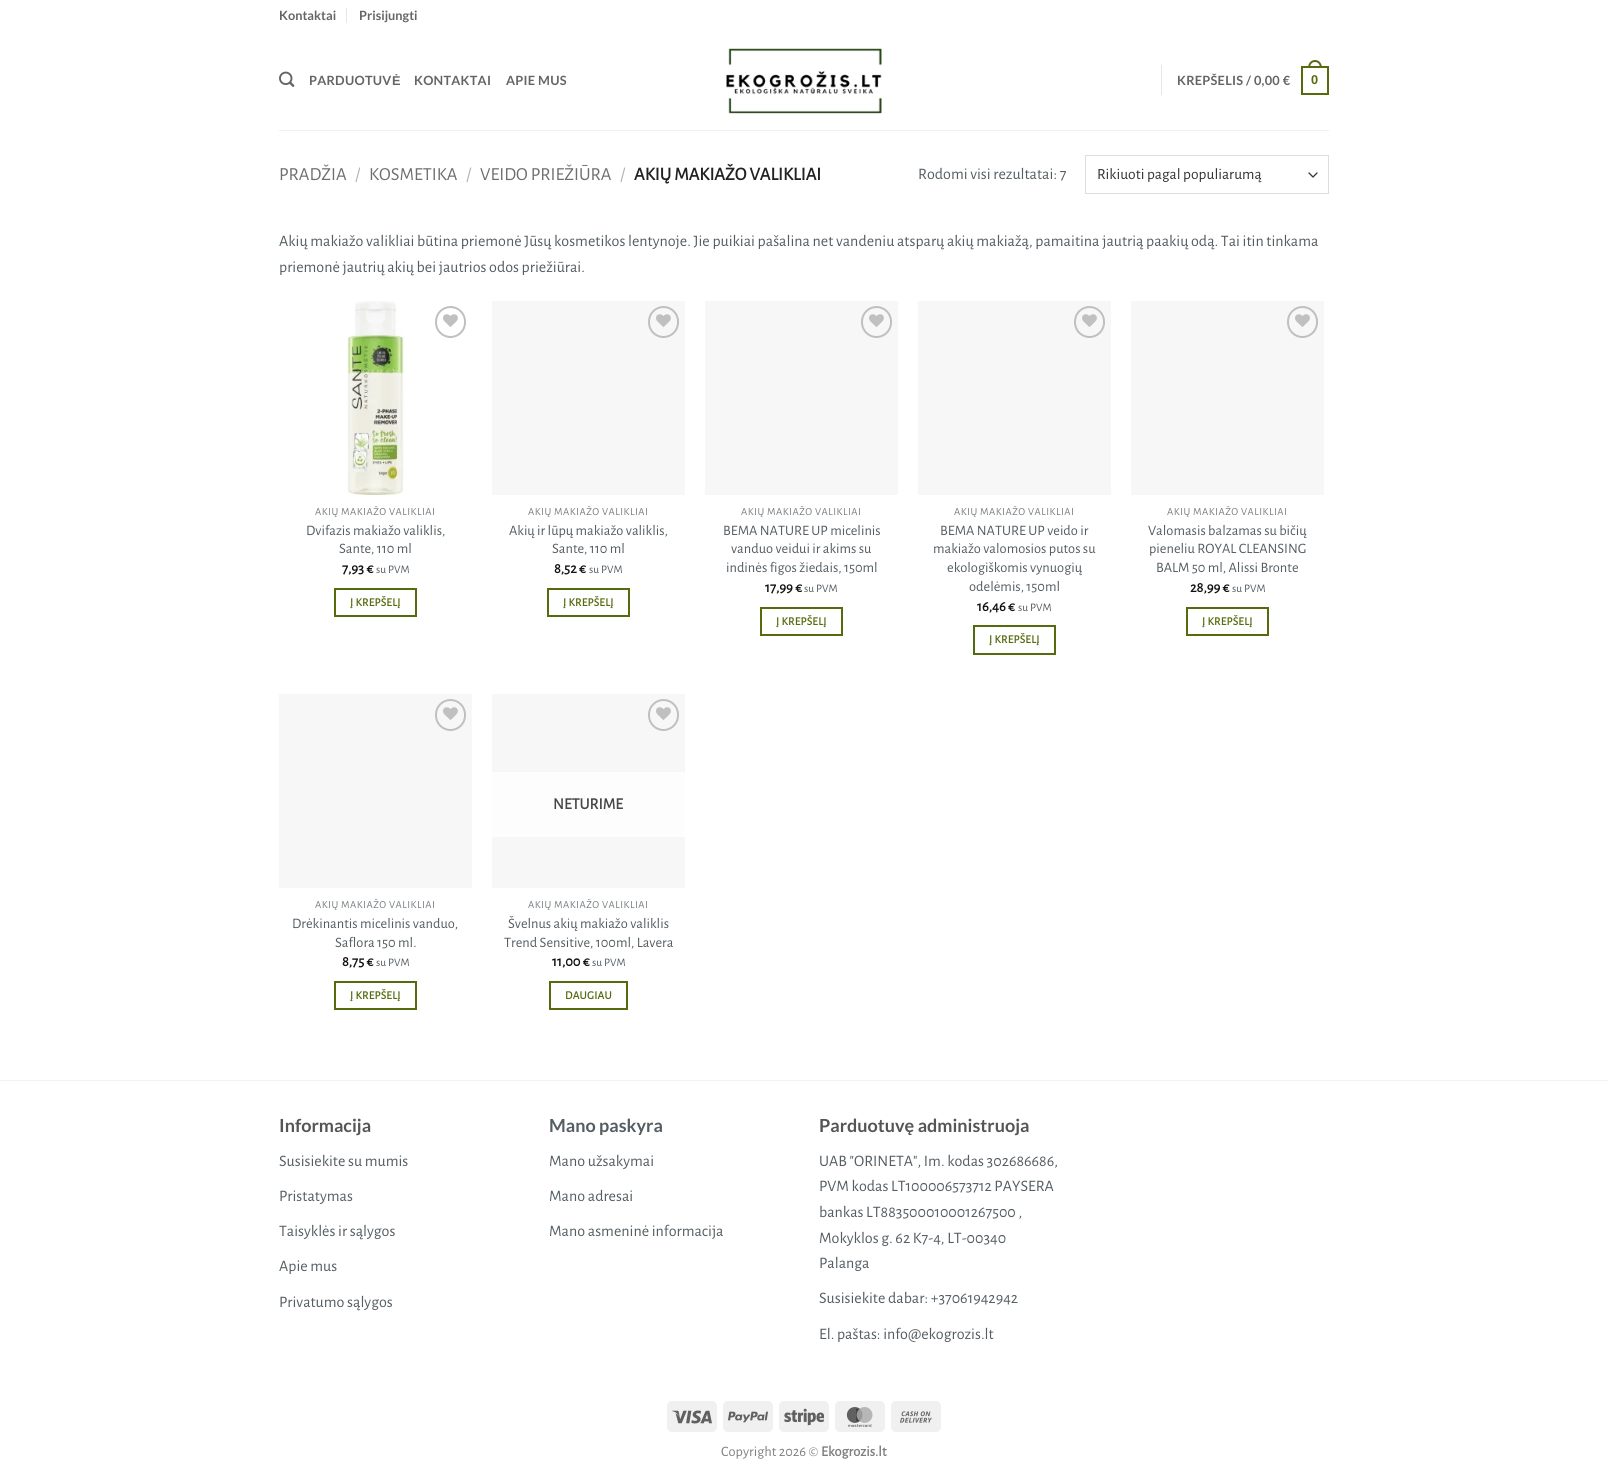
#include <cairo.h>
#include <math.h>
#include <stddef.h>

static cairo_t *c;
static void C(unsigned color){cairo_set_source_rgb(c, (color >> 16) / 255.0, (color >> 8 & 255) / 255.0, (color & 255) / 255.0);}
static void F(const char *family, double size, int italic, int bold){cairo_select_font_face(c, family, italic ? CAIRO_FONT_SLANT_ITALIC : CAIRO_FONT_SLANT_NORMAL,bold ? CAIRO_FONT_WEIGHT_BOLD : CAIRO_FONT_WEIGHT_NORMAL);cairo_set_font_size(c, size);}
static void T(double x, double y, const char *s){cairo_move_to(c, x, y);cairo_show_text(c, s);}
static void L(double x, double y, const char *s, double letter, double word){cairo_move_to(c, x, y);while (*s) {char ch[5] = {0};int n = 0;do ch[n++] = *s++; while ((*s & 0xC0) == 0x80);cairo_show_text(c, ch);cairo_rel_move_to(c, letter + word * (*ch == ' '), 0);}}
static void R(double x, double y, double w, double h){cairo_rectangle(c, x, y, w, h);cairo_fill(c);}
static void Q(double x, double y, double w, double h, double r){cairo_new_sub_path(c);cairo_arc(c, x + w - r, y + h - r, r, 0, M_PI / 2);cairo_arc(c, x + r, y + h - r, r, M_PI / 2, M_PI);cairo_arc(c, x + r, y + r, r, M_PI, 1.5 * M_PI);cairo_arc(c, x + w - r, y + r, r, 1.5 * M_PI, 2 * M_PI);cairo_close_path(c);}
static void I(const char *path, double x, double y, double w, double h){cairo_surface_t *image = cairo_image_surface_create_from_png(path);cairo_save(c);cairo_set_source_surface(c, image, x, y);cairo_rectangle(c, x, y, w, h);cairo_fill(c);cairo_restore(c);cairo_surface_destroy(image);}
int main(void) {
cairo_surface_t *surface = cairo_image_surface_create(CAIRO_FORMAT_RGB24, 1608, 1460);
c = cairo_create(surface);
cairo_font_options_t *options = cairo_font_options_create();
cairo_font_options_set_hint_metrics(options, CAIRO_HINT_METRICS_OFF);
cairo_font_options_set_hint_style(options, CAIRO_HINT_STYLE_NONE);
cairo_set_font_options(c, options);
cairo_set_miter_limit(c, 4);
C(0xffffff);
cairo_paint(c);
F("Lato",12.75,0,1);
C(0x656565);
T(279,20,"Kontaktai");
C(0xe6e6e6);
R(346,8,1,15);
C(0x656565);
T(359,20,"Prisijungti");
I("1.png",279,71,16,16);
L(309,85,"PARDUOTUV",.25,0);
F("Liberation Sans",12.75,0,1);
L(392,85,"Ė",.25,0);
F("Lato",12.75,0,1);
L(414,85,"KONTAKTAI",.25,0);
L(506,85,"APIE MUS",.25,0);
I("2.png",726,48,156,66);
C(0xe6e6e6);
R(1161,65,1,30);
C(0x656565);
L(1177,85,"KREPŠELIS / 0,00 €",.25,0);
cairo_rectangle(c,1302,67,26,27);
C(0x566b0e);
cairo_stroke(c);
cairo_set_fill_rule(c,CAIRO_FILL_RULE_EVEN_ODD);
cairo_new_path(c);
cairo_move_to(c,1315,60);
cairo_curve_to(c,1319.5,60,1322,64,1322,68);
cairo_line_to(c,1308,68);
cairo_curve_to(c,1308,64,1310.5,60,1315,60);
cairo_close_path(c);
cairo_move_to(c,1315,62);
cairo_curve_to(c,1318.5,62,1320,65,1320,68);
cairo_line_to(c,1310,68);
cairo_curve_to(c,1310,65,1311.5,62,1315,62);
cairo_close_path(c);
cairo_fill(c);
F("Liberation Sans",12.75,0,1);
L(1311,84,"0",.25,0);
C(0xeeefef);
R(279,130,1050,1);
F("Alegreya Sans",18.4,0,0);
C(0x6e6e6e);
T(279,180,"PRADŽIA");
C(0xb2b2b2);
T(355,180,"/");
C(0x6e6e6e);
T(369,180,"KOSMETIKA");
C(0xb2b2b2);
T(466,180,"/");
C(0x6e6e6e);
T(480,180,"VEIDO PRIEŽIŪRA");
C(0xb2b2b2);
T(620,180,"/");
F("Alegreya Sans",18.4,0,1);
C(0x222222);
T(634,180,"AKIŲ MAKIAŽO VALIKLIAI");
F("Alegreya Sans",16,0,0);
C(0x545d62);
T(918,179,"Rodomi visi rezultatai: 7");
cairo_new_path(c);
cairo_move_to(c,1309,173);
cairo_line_to(c,1313,177);
cairo_line_to(c,1317,173);
C(0x333333);
cairo_set_line_width(c,1.3);
cairo_set_line_cap(c,CAIRO_LINE_CAP_ROUND);
cairo_set_line_join(c,CAIRO_LINE_JOIN_ROUND);
cairo_stroke(c);
cairo_rectangle(c,1085.5,155.5,243,38);
C(0xdddddd);
cairo_set_line_width(c,1);
cairo_set_line_cap(c,CAIRO_LINE_CAP_BUTT);
cairo_set_line_join(c,CAIRO_LINE_JOIN_MITER);
cairo_stroke(c);
F("Alegreya Sans",15.5,0,0);
C(0x333333);
T(1097,179,"Rikiuoti pagal populiarumą");
F("Alegreya Sans",16,0,0);
C(0x545d62);
T(279,246,"Akių makiažo valikliai būtina priemonė Jūsų kosmetikos lentynoje. Jie puikiai pašalina net vandeniu atsparų akių makiažą, pamaitina jautrią paakių odą. Tai itin tinkama");
T(279,272,"priemonė jautrių akių bei jautrios odos priežiūrai.");
I("3.png",347,301,58,194);
Q(436,307,29,30,14.5);
C(0xc0c0c0);
cairo_set_line_width(c,2);
cairo_stroke(c);
I("4.png",443,314,15,13);
F("Alegreya Sans",10.75,0,0);
C(0x767d81);
L(315,515,"AKIŲ MAKIAŽO VALIKLIAI",.5,0);
F("Alegreya Sans",14.4,0,0);
C(0x545d62);
T(306,535,"Dvifazis makiažo valiklis,");
T(339,553,"Sante, 110 ml");
F("Alegreya Sans",14.4,0,1);
C(0x111111);
T(342,573,"7,93 €");
F("Alegreya Sans",11.5,0,0);
C(0x545d62);
T(376,573,"su PVM");
cairo_rectangle(c,335,589,81,27);
C(0x566b0e);
cairo_stroke(c);
F("Alegreya Sans",11.5,0,1);
L(350,606,"Į KREPŠELĮ",.25,0);
C(0xf7f7f7);
R(492,301,193,194);
Q(649,307,29,30,14.5);
C(0xc0c0c0);
cairo_stroke(c);
I("5.png",656,314,15,13);
F("Alegreya Sans",10.75,0,0);
C(0x767d81);
L(528,515,"AKIŲ MAKIAŽO VALIKLIAI",.5,0);
F("Alegreya Sans",14.4,0,0);
C(0x545d62);
T(509,535,"Akių ir lūpų makiažo valiklis,");
T(552,553,"Sante, 110 ml");
F("Alegreya Sans",14.4,0,1);
C(0x111111);
T(554,573,"8,52 €");
F("Alegreya Sans",11.5,0,0);
C(0x545d62);
T(589,573,"su PVM");
cairo_rectangle(c,548,589,81,27);
C(0x566b0e);
cairo_stroke(c);
F("Alegreya Sans",11.5,0,1);
L(563,606,"Į KREPŠELĮ",.25,0);
C(0xf7f7f7);
R(705,301,193,194);
Q(862,307,29,30,14.5);
C(0xc0c0c0);
cairo_stroke(c);
I("5.png",869,314,15,13);
F("Alegreya Sans",10.75,0,0);
C(0x767d81);
L(741,515,"AKIŲ MAKIAŽO VALIKLIAI",.5,0);
F("Alegreya Sans",14.4,0,0);
C(0x545d62);
T(723,535,"BEMA NATURE UP micelinis");
T(731,553,"vanduo veidui ir akims su");
T(726,572,"indinės figos žiedais, 150ml");
F("Alegreya Sans",14.4,0,1);
C(0x111111);
T(765,592,"17,99 €");
F("Alegreya Sans",11.5,0,0);
C(0x545d62);
T(804,592,"su PVM");
cairo_rectangle(c,761,608,81,27);
C(0x566b0e);
cairo_stroke(c);
F("Alegreya Sans",11.5,0,1);
L(776,625,"Į KREPŠELĮ",.25,0);
C(0xf7f7f7);
R(918,301,193,194);
Q(1075,307,29,30,14.5);
C(0xc0c0c0);
cairo_stroke(c);
I("5.png",1082,314,15,13);
F("Alegreya Sans",10.75,0,0);
C(0x767d81);
L(954,515,"AKIŲ MAKIAŽO VALIKLIAI",.5,0);
F("Alegreya Sans",14.4,0,0);
C(0x545d62);
T(940,535,"BEMA NATURE UP veido ir");
T(933,553,"makiažo valomosios putos su");
T(947,572,"ekologiškomis vynuogių");
T(969,591,"odelėmis, 150ml");
F("Alegreya Sans",14.4,0,1);
C(0x111111);
T(977,611,"16,46 €");
F("Alegreya Sans",11.5,0,0);
C(0x545d62);
T(1018,611,"su PVM");
cairo_rectangle(c,974,626,81,28);
C(0x566b0e);
cairo_stroke(c);
F("Alegreya Sans",11.5,0,1);
L(989,643,"Į KREPŠELĮ",.25,0);
C(0xf7f7f7);
R(1131,301,193,194);
Q(1288,307,29,30,14.5);
C(0xc0c0c0);
cairo_stroke(c);
I("5.png",1295,314,15,13);
F("Alegreya Sans",10.75,0,0);
C(0x767d81);
L(1167,515,"AKIŲ MAKIAŽO VALIKLIAI",.5,0);
F("Alegreya Sans",14.4,0,0);
C(0x545d62);
T(1148,535,"Valomasis balzamas su bičių");
T(1149,553,"pieneliu ROYAL CLEANSING");
T(1156,572,"BALM 50 ml, Alissi Bronte");
F("Alegreya Sans",14.4,0,1);
C(0x111111);
T(1190,592,"28,99 €");
F("Alegreya Sans",11.5,0,0);
C(0x545d62);
T(1232,592,"su PVM");
cairo_rectangle(c,1187,608,81,27);
C(0x566b0e);
cairo_stroke(c);
F("Alegreya Sans",11.5,0,1);
L(1202,625,"Į KREPŠELĮ",.25,0);
C(0xf7f7f7);
R(279,694,193,194);
Q(436,700,29,30,14.5);
C(0xc0c0c0);
cairo_stroke(c);
I("5.png",443,707,15,13);
F("Alegreya Sans",10.75,0,0);
C(0x767d81);
L(315,908,"AKIŲ MAKIAŽO VALIKLIAI",.5,0);
F("Alegreya Sans",14.4,0,0);
C(0x545d62);
T(292,928,"Drėkinantis micelinis vanduo,");
T(335,947,"Saflora 150 ml.");
F("Alegreya Sans",14.4,0,1);
C(0x111111);
T(342,966,"8,75 €");
F("Alegreya Sans",11.5,0,0);
C(0x545d62);
T(376,966,"su PVM");
cairo_rectangle(c,335,982,81,27);
C(0x566b0e);
cairo_stroke(c);
F("Alegreya Sans",11.5,0,1);
L(350,999,"Į KREPŠELĮ",.25,0);
C(0xf7f7f7);
R(492,694,193,194);
Q(649,700,29,30,14.5);
C(0xc0c0c0);
cairo_stroke(c);
I("5.png",656,707,15,13);
C(0xfdfdfd);
R(492,772,193,65);
F("Alegreya Sans",16,0,1);
C(0x474747);
T(553,809,"NETURIME");
F("Alegreya Sans",10.75,0,0);
C(0x767d81);
L(528,908,"AKIŲ MAKIAŽO VALIKLIAI",.5,0);
F("Alegreya Sans",14.4,0,0);
C(0x545d62);
T(508,928,"Švelnus akių makiažo valiklis");
T(504,947,"Trend Sensitive, 100ml, Lavera");
F("Alegreya Sans",14.4,0,1);
C(0x111111);
T(552,966,"11,00 €");
F("Alegreya Sans",11.5,0,0);
C(0x545d62);
T(592,966,"su PVM");
cairo_rectangle(c,550,982,77,27);
C(0x566b0e);
cairo_stroke(c);
F("Alegreya Sans",11.5,0,1);
L(565,999,"DAUGIAU",.25,0);
C(0xf2f2f2);
R(0,1080,1608,1);
F("Lato",18,0,1);
C(0x555555);
T(279,1132,"Informacija");
F("Alegreya Sans",16,0,0);
C(0x545d62);
T(279,1166,"Susisiekite su mumis");
T(279,1201,"Pristatymas");
T(279,1236,"Taisyklės ir sąlygos");
T(279,1271,"Apie mus");
T(279,1307,"Privatumo sąlygos");
F("Lato",18,0,1);
T(549,1132,"Mano paskyra");
F("Alegreya Sans",16,0,0);
T(549,1166,"Mano užsakymai");
T(549,1201,"Mano adresai");
T(549,1236,"Mano asmeninė informacija");
F("Lato",18,0,1);
C(0x555555);
T(819,1132,"Parduotuvę administruoja");
F("Alegreya Sans",16,0,0);
C(0x545d62);
T(819,1166,"UAB \"ORINETA\", Im. kodas 302686686,");
T(819,1191,"PVM kodas LT100006573712 PAYSERA");
T(819,1217,"bankas LT883500010001267500 ,");
T(819,1243,"Mokyklos g. 62 K7-4, LT-00340");
T(819,1268,"Palanga");
T(819,1303,"Susisiekite dabar: +37061942942");
T(819,1339,"El. paštas: info@ekogrozis.lt");
C(0xf0f0f0);
Q(667,1401,50,31,5);
cairo_fill(c);
I("6.png",672,1410,40,14);
Q(723,1401,50,31,5);
cairo_fill(c);
I("7.png",728,1411,40,12);
Q(779,1401,50,31,5);
cairo_fill(c);
I("8.png",784,1408,40,18);
Q(835,1401,50,31,5);
cairo_fill(c);
I("9.png",846,1407,27,20);
Q(891,1401,50,31,5);
cairo_fill(c);
I("10.png",900,1411,32,12);
F("Alegreya Sans",14.4,0,0);
C(0x808080);
T(721,1456,"Copyright 2026 ©");
F("Alegreya Sans",14.4,0,1);
T(821,1456,"Ekogrozis.lt");
cairo_surface_write_to_png(surface, "o.png");
cairo_font_options_destroy(options);
cairo_destroy(c);
cairo_surface_destroy(surface);
return 0;
}
